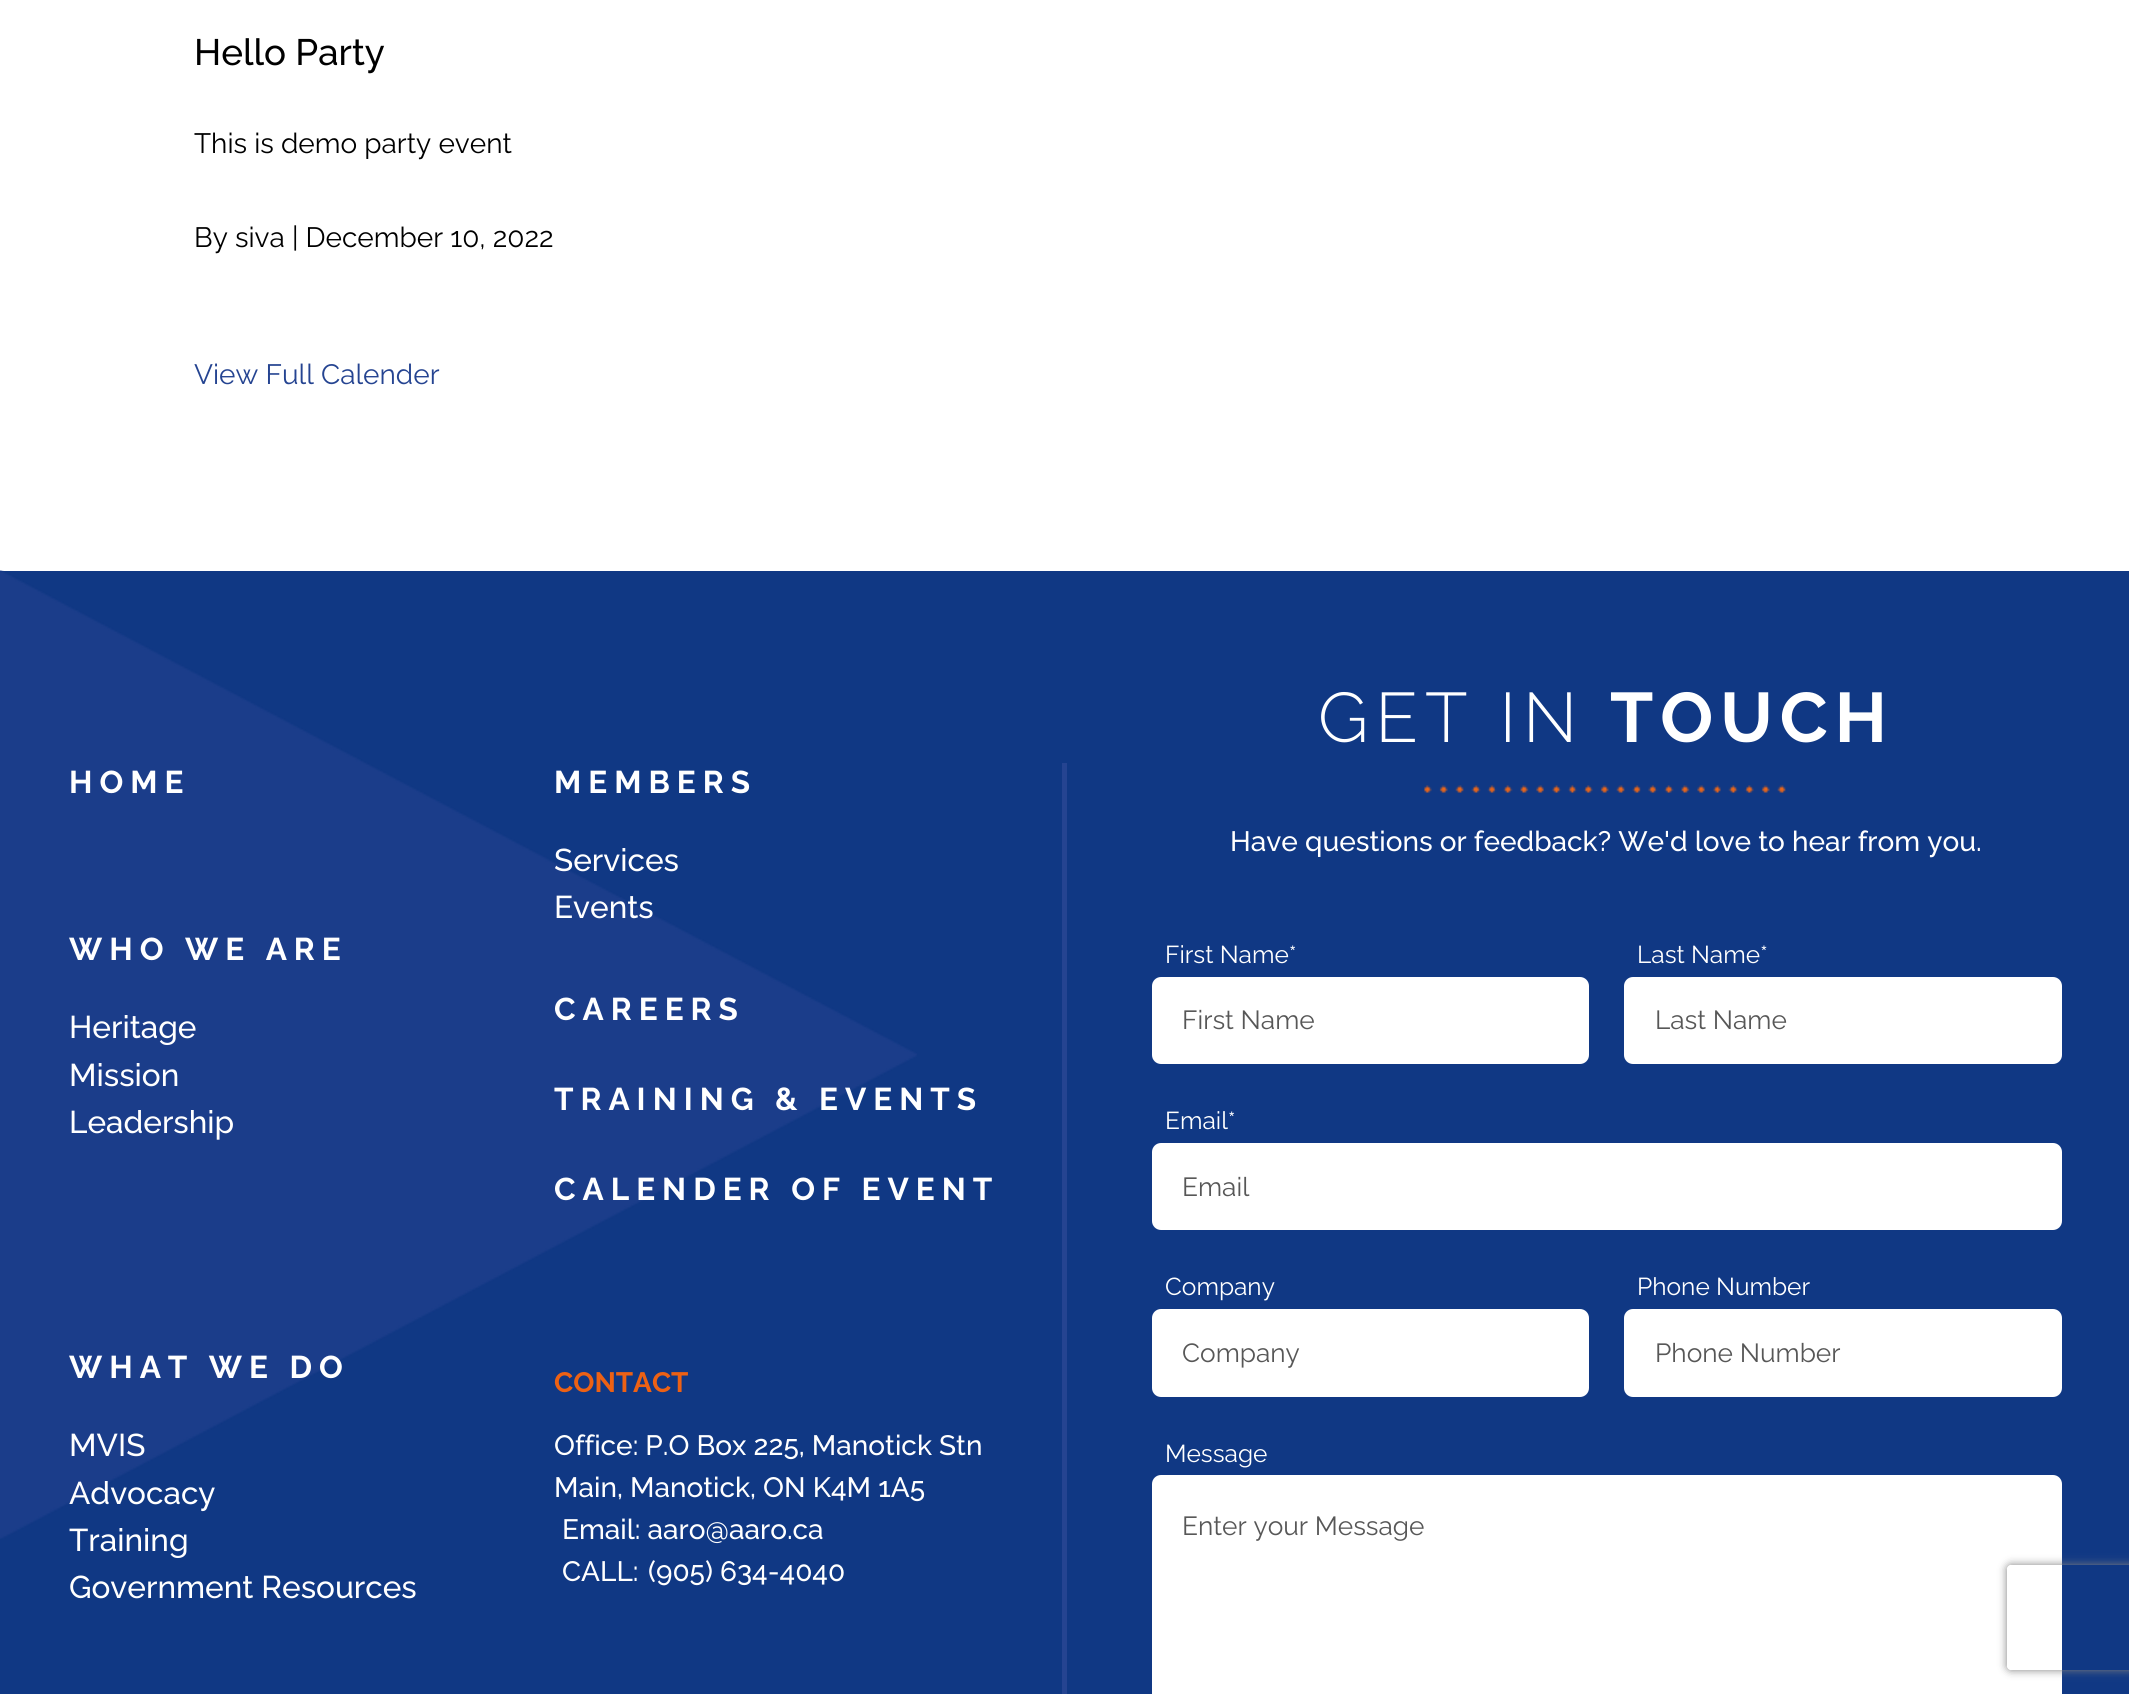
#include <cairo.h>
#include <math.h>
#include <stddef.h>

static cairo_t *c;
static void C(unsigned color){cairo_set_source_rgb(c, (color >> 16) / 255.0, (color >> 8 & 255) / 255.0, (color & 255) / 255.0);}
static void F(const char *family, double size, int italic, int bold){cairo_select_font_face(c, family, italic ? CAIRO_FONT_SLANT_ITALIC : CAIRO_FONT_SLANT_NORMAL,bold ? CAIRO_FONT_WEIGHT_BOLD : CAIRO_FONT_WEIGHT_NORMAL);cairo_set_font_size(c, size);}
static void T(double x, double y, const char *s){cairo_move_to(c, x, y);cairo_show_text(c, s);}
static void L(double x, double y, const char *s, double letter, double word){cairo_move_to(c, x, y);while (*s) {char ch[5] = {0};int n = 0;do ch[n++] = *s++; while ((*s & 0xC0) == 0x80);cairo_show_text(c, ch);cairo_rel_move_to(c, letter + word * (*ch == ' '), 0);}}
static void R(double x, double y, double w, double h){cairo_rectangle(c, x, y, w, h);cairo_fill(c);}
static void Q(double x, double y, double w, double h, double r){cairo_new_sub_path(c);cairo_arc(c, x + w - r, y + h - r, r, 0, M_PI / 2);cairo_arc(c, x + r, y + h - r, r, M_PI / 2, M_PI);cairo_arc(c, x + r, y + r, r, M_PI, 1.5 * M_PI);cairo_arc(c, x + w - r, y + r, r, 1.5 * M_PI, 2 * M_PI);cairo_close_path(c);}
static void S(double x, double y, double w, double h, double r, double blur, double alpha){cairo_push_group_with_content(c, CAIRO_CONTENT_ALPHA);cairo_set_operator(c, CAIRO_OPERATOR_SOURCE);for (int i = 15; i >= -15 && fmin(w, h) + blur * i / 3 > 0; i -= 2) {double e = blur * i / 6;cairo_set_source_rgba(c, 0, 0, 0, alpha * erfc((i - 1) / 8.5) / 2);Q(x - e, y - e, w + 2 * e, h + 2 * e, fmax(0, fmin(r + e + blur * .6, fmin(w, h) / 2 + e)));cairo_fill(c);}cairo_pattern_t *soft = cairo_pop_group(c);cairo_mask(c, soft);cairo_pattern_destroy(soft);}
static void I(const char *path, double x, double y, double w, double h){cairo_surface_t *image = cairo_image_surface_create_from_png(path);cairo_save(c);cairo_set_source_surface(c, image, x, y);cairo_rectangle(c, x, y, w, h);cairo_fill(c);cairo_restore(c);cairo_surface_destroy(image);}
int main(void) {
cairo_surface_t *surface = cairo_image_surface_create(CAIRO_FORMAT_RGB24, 2129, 1694);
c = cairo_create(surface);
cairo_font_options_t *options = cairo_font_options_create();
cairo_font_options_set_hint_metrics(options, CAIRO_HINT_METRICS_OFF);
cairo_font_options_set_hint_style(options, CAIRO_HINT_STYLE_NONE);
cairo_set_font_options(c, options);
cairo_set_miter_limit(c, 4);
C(0xffffff);
cairo_paint(c);
F("Raleway Medium",36.75,0,0);
C(0x000000);
T(194,65,"Hello Party");
F("Raleway",28,0,0);
T(194,153,"This is demo party event");
T(194,247,"By siva | December 10, 2022");
C(0x254491);
T(194,384,"View Full Calender");
C(0x103884);
R(0,571,2129,1123);
I("1.png",0,570,917,969);
F("Raleway",31.5,0,1);
C(0xffffff);
L(69,793,"HOME",7,0);
L(554,793,"MEMBERS",7,0);
F("Raleway Medium",31.5,0,0);
T(554,871,"Services");
T(554,918,"Events");
F("Raleway",31.5,0,1);
L(69,960,"WHO WE ARE",7,0);
F("Raleway Medium",31.5,0,0);
T(69,1038,"Heritage");
T(69,1086,"Mission");
T(69,1133,"Leadership");
F("Raleway",31.5,0,1);
L(554,1020,"CAREERS",7,0);
L(554,1110,"TRAINING & EVENTS",7,0);
L(554,1200,"CALENDER OF EVENT",7,0);
L(69,1378,"WHAT WE DO",7,0);
F("Raleway Medium",31.5,0,0);
T(69,1456,"MVIS");
T(69,1504,"Advocacy");
T(69,1551,"Training");
T(69,1598,"Government Resources");
F("Raleway",28,0,1);
C(0xed6114);
T(554,1392,"CONTACT");
F("Raleway Medium",28,0,0);
C(0xffffff);
T(554,1455,"Office: P.O Box 225, Manotick Stn");
T(554,1497,"Main, Manotick, ON K4M 1A5");
T(562,1539,"Email: aaro@aaro.ca");
T(562,1581,"CALL:");
T(648,1581,"(905) 634-4040");
C(0x254491);
R(1062,763,5,931);
F("Raleway Light",70,0,0);
C(0xffffff);
L(1318,742,"GET IN",7,0);
F("Raleway",70,0,1);
L(1610,742,"TOUCH",7,0);
I("2.png",1424,785,362,8);
F("Raleway Medium",28,0,0);
T(1230,851,"Have questions or feedback? We'd love to hear from you.");
F("Raleway",24.5,0,0);
T(1165,963,"First Name*");
Q(1152,977,437,87,9);
cairo_fill(c);
F("Raleway",26.25,0,0);
C(0x575757);
T(1182,1029,"First Name");
F("Raleway",24.5,0,0);
C(0xffffff);
T(1637,963,"Last Name*");
Q(1624,977,438,87,9);
cairo_fill(c);
F("Raleway",26.25,0,0);
C(0x575757);
T(1655,1029,"Last Name");
F("Raleway",24.5,0,0);
C(0xffffff);
T(1165,1129,"Email*");
Q(1152,1143,910,87,9);
cairo_fill(c);
F("Raleway",26.25,0,0);
C(0x575757);
T(1182,1196,"Email");
F("Raleway",24.5,0,0);
C(0xffffff);
T(1165,1295,"Company");
Q(1152,1309,437,88,9);
cairo_fill(c);
F("Raleway",26.25,0,0);
C(0x575757);
T(1182,1362,"Company");
F("Raleway",24.5,0,0);
C(0xffffff);
T(1637,1295,"Phone Number");
Q(1624,1309,438,88,9);
cairo_fill(c);
F("Raleway",26.25,0,0);
C(0x575757);
T(1655,1362,"Phone Number");
F("Raleway",24.5,0,0);
C(0xffffff);
T(1165,1462,"Message");
Q(1152,1475,910,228,9);
cairo_fill(c);
F("Raleway",26.25,0,0);
C(0x575757);
T(1182,1535,"Enter your Message");
cairo_save(c);
cairo_set_fill_rule(c,CAIRO_FILL_RULE_EVEN_ODD);
cairo_new_path(c);
cairo_move_to(c,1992,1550);
cairo_line_to(c,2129,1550);
cairo_line_to(c,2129,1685);
cairo_line_to(c,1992,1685);
cairo_close_path(c);
cairo_move_to(c,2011,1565);
cairo_line_to(c,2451,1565);
cairo_curve_to(c,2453,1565,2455,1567,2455,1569);
cairo_line_to(c,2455,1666);
cairo_curve_to(c,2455,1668,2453,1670,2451,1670);
cairo_line_to(c,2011,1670);
cairo_curve_to(c,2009,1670,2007,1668,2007,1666);
cairo_line_to(c,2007,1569);
cairo_curve_to(c,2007,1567,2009,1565,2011,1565);
cairo_close_path(c);
cairo_clip(c);
C(0x808080);
S(2007,1565,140,105,4,4.5,1);
cairo_restore(c);
cairo_surface_write_to_png(surface, "o.png");
cairo_font_options_destroy(options);
cairo_destroy(c);
cairo_surface_destroy(surface);
return 0;
}
